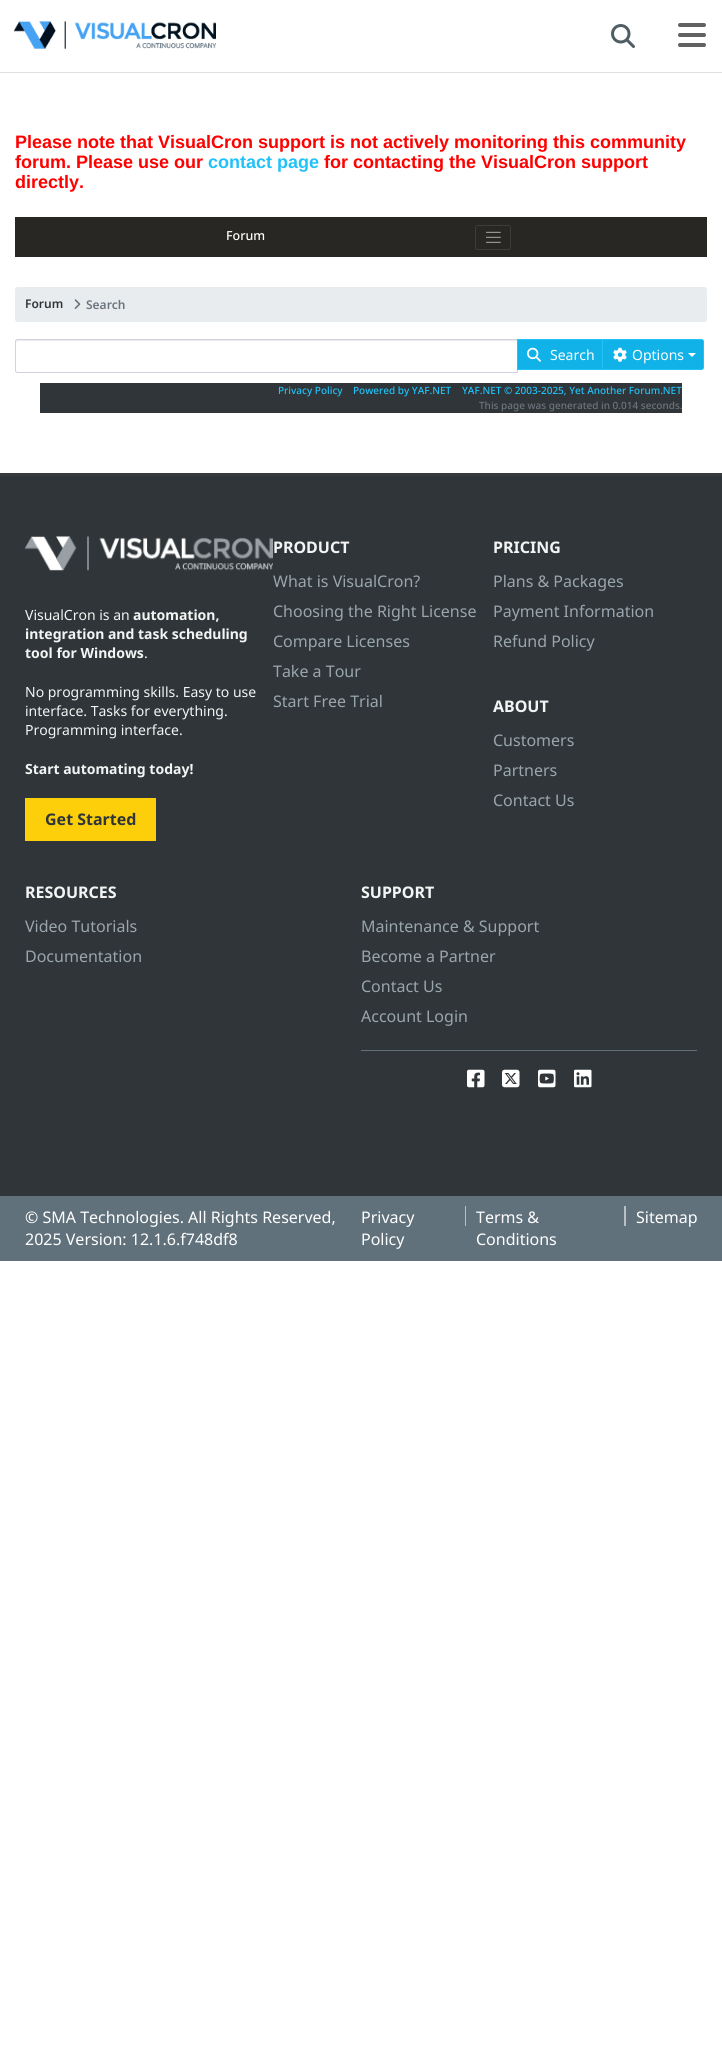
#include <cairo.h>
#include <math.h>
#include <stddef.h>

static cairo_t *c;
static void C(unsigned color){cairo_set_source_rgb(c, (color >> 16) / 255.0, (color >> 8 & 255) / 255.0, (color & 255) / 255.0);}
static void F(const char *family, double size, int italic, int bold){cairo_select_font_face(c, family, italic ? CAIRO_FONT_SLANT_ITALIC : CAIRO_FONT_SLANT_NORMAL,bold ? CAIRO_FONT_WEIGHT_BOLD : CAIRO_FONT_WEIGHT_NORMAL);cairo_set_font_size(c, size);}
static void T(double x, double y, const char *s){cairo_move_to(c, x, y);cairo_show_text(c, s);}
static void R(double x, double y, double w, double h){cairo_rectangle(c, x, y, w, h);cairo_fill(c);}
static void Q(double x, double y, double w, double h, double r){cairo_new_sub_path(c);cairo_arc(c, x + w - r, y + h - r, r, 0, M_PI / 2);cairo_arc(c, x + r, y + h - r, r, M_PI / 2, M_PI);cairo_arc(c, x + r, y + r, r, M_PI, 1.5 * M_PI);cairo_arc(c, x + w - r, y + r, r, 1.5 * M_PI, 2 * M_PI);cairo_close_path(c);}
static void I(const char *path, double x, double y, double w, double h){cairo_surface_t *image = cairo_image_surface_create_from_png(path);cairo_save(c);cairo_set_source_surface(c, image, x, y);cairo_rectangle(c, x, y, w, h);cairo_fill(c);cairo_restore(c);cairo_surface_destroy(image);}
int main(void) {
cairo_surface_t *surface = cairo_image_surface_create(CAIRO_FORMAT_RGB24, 722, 2046);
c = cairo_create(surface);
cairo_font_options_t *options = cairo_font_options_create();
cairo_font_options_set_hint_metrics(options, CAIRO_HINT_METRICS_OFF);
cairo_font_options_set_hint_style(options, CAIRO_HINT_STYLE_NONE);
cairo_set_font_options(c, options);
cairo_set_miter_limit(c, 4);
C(0xffffff);
cairo_paint(c);
I("1.png",14,21,202,28);
I("2.png",611,24,24,24);
I("3.png",678,23,28,24);
C(0xe0e0e0);
R(0,72,722,1);
F("Liberation Sans",18,0,1);
C(0xff0000);
T(15,148,"Please note that VisualCron support is not actively monitoring this community");
T(15,168,"forum. Please use our");
C(0x21c2f8);
T(208,168,"contact page");
C(0xff0000);
T(324,168,"for contacting the VisualCron support");
T(15,188,"directly.");
C(0x292723);
R(15,217,692,40);
F("Noto Sans Medium",12.5,0,0);
C(0xffffff);
T(226,240,"Forum");
Q(475.5,225.5,35,24,2);
C(0x3e3d39);
cairo_set_line_width(c,1);
cairo_stroke(c);
I("4.png",486,231,15,12);
C(0xe9ecef);
Q(15,287,692,35,2.5);
cairo_fill(c);
F("Noto Sans SemiBold",12,0,0);
C(0x2f3538);
T(25,308,"Forum");
I("5.png",74,299,7,10);
C(0x6c757d);
T(86,309,"Search");
C(0xececec);
cairo_new_path(c);
cairo_move_to(c,18,341);
cairo_line_to(c,517,341);
cairo_line_to(c,517,340);
cairo_line_to(c,18,340);
cairo_curve_to(c,16,340,16,341,16,342);
cairo_close_path(c);
cairo_fill(c);
cairo_new_path(c);
cairo_move_to(c,17.5,339.5);
cairo_line_to(c,517.5,339.5);
cairo_line_to(c,517.5,372.5);
cairo_line_to(c,17.5,372.5);
cairo_curve_to(c,16.5,372.5,15.5,371.5,15.5,370.5);
cairo_line_to(c,15.5,341.5);
cairo_curve_to(c,15.5,340.5,16.5,339.5,17.5,339.5);
cairo_close_path(c);
C(0xced4da);
cairo_stroke(c);
C(0x11b2e8);
cairo_rectangle(c,517.5,339.5,85,30);
cairo_fill_preserve(c);
C(0x21c2f8);
cairo_stroke(c);
I("6.png",527,347,14,15);
F("Noto Sans",14,0,0);
C(0xffffff);
T(550,360,"Search");
C(0x11b2e8);
cairo_new_path(c);
cairo_move_to(c,602.5,339.5);
cairo_line_to(c,701.5,339.5);
cairo_curve_to(c,702.5,339.5,703.5,340.5,703.5,341.5);
cairo_line_to(c,703.5,367.5);
cairo_curve_to(c,703.5,368.5,702.5,369.5,701.5,369.5);
cairo_line_to(c,602.5,369.5);
cairo_close_path(c);
cairo_fill_preserve(c);
C(0x21c2f8);
cairo_stroke(c);
I("7.png",613,347,14,15);
C(0xffffff);
T(632,360,"Options");
cairo_new_path(c);
cairo_move_to(c,688,353);
cairo_line_to(c,696,353);
cairo_line_to(c,692,357);
cairo_close_path(c);
cairo_fill(c);
C(0x2f3538);
R(40,383,642,30);
F("Noto Sans Medium",10,0,0);
C(0x21c2f8);
T(278,394,"Privacy Policy");
T(353,394,"Powered by YAF.NET");
T(462,394,"YAF.NET © 2003-2025, Yet Another Forum.NET");
C(0x6c757d);
T(479,409,"This page was generated in 0.014 seconds.");
C(0x2f3538);
R(0,476,722,720);
C(0x353a3e);
R(0,473,722,3);
I("8.png",25,536,248,35);
F("Noto Sans",14,0,0);
C(0xf3f4f4);
T(25,620,"VisualCron is an");
F("Noto Sans",14,0,1);
T(133,620,"automation,");
T(25,639,"integration and task scheduling");
T(25,658,"tool for Windows");
F("Noto Sans",14,0,0);
T(144,658,".");
T(25,697,"No programming skills. Easy to use");
T(25,716,"interface. Tasks for everything.");
T(25,735,"Programming interface.");
F("Noto Sans",14,0,1);
T(25,774,"Start automating today!");
C(0xfccf0a);
R(25,798,131,43);
F("Noto Sans",16,0,1);
C(0x2f3538);
T(45,825,"Get Started");
C(0xf3f4f4);
T(273,553,"PRODUCT");
F("Noto Sans",16,0,0);
C(0x9aa6ad);
T(273,587,"What is VisualCron?");
T(273,617,"Choosing the Right License");
T(273,647,"Compare Licenses");
T(273,677,"Take a Tour");
T(273,707,"Start Free Trial");
F("Noto Sans",16,0,1);
C(0xf3f4f4);
T(493,553,"PRICING");
F("Noto Sans",16,0,0);
C(0x9aa6ad);
T(493,587,"Plans & Packages");
T(493,617,"Payment Information");
T(493,647,"Refund Policy");
F("Noto Sans",16,0,1);
C(0xf3f4f4);
T(493,712,"ABOUT");
F("Noto Sans",16,0,0);
C(0x9aa6ad);
T(493,746,"Customers");
T(493,776,"Partners");
T(493,806,"Contact Us");
F("Noto Sans",16,0,1);
C(0xf3f4f4);
T(25,898,"RESOURCES");
F("Noto Sans",16,0,0);
C(0x9aa6ad);
T(25,932,"Video Tutorials");
T(25,962,"Documentation");
F("Noto Sans",16,0,1);
C(0xf3f4f4);
T(361,898,"SUPPORT");
F("Noto Sans",16,0,0);
C(0x9aa6ad);
T(361,932,"Maintenance & Support");
T(361,962,"Become a Partner");
T(361,992,"Contact Us");
T(361,1022,"Account Login");
C(0x60717b);
R(361,1050,336,1);
I("9.png",467,1069,18,19);
I("10.png",502,1069,18,19);
I("11.png",538,1069,18,19);
I("12.png",574,1069,18,19);
R(0,1196,722,65);
C(0xffffff);
T(25,1223,"© SMA Technologies. All Rights Reserved,");
T(25,1245,"2025 Version: 12.1.6.f748df8");
T(361,1223,"Privacy");
T(361,1245,"Policy");
C(0xb9bfc3);
R(465,1206,1,20);
C(0xffffff);
T(476,1223,"Terms &");
T(476,1245,"Conditions");
C(0xb9bfc3);
R(624,1206,2,20);
C(0xffffff);
T(636,1223,"Sitemap");
cairo_surface_write_to_png(surface, "o.png");
cairo_font_options_destroy(options);
cairo_destroy(c);
cairo_surface_destroy(surface);
return 0;
}
